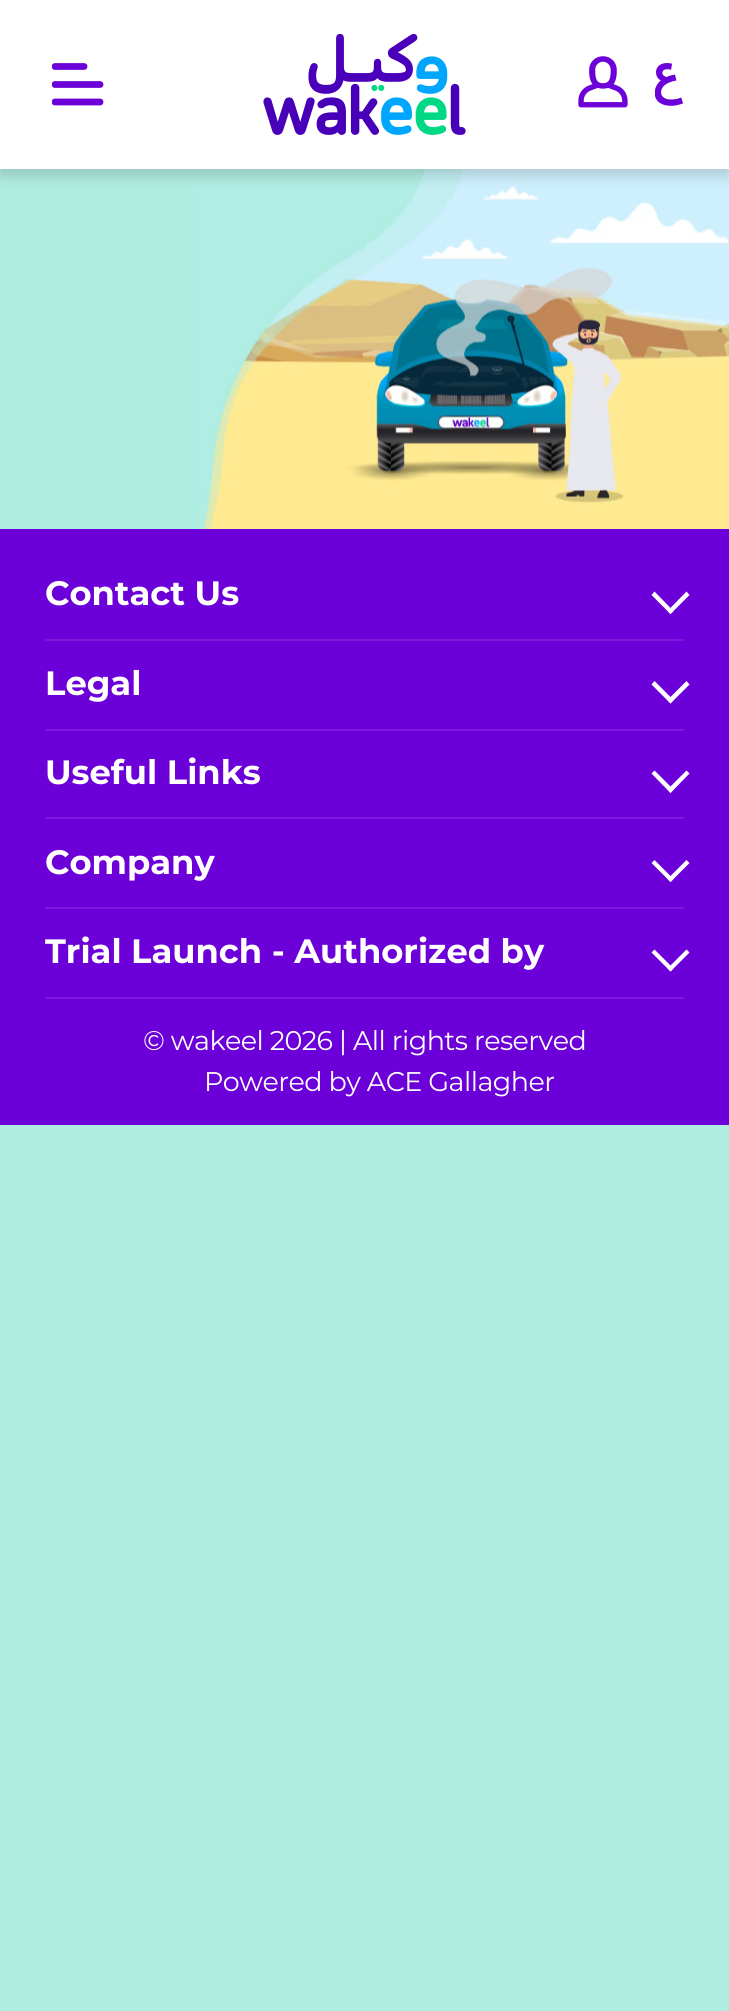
#include <cairo.h>
#include <math.h>
#include <stddef.h>

static cairo_t *c;
static void C(unsigned color){cairo_set_source_rgb(c, (color >> 16) / 255.0, (color >> 8 & 255) / 255.0, (color & 255) / 255.0);}
static void F(const char *family, double size, int italic, int bold){cairo_select_font_face(c, family, italic ? CAIRO_FONT_SLANT_ITALIC : CAIRO_FONT_SLANT_NORMAL,bold ? CAIRO_FONT_WEIGHT_BOLD : CAIRO_FONT_WEIGHT_NORMAL);cairo_set_font_size(c, size);}
static void T(double x, double y, const char *s){cairo_move_to(c, x, y);cairo_show_text(c, s);}
static void L(double x, double y, const char *s, double letter, double word){cairo_move_to(c, x, y);while (*s) {char ch[5] = {0};int n = 0;do ch[n++] = *s++; while ((*s & 0xC0) == 0x80);cairo_show_text(c, ch);cairo_rel_move_to(c, letter + word * (*ch == ' '), 0);}}
static void R(double x, double y, double w, double h){cairo_rectangle(c, x, y, w, h);cairo_fill(c);}
static void Q(double x, double y, double w, double h, double r){cairo_new_sub_path(c);cairo_arc(c, x + w - r, y + h - r, r, 0, M_PI / 2);cairo_arc(c, x + r, y + h - r, r, M_PI / 2, M_PI);cairo_arc(c, x + r, y + r, r, M_PI, 1.5 * M_PI);cairo_arc(c, x + w - r, y + r, r, 1.5 * M_PI, 2 * M_PI);cairo_close_path(c);}
static void S(double x, double y, double w, double h, double r, double blur, double alpha){cairo_push_group_with_content(c, CAIRO_CONTENT_ALPHA);cairo_set_operator(c, CAIRO_OPERATOR_SOURCE);for (int i = 15; i >= -15 && fmin(w, h) + blur * i / 3 > 0; i -= 2) {double e = blur * i / 6;cairo_set_source_rgba(c, 0, 0, 0, alpha * erfc((i - 1) / 8.5) / 2);Q(x - e, y - e, w + 2 * e, h + 2 * e, fmax(0, fmin(r + e + blur * .6, fmin(w, h) / 2 + e)));cairo_fill(c);}cairo_pattern_t *soft = cairo_pop_group(c);cairo_mask(c, soft);cairo_pattern_destroy(soft);}
static void I(const char *path, double x, double y, double w, double h){cairo_surface_t *image = cairo_image_surface_create_from_png(path);cairo_save(c);cairo_set_source_surface(c, image, x, y);cairo_rectangle(c, x, y, w, h);cairo_fill(c);cairo_restore(c);cairo_surface_destroy(image);}
int main(void) {
cairo_surface_t *surface = cairo_image_surface_create(CAIRO_FORMAT_RGB24, 729, 2011);
c = cairo_create(surface);
cairo_font_options_t *options = cairo_font_options_create();
cairo_font_options_set_hint_metrics(options, CAIRO_HINT_METRICS_OFF);
cairo_font_options_set_hint_style(options, CAIRO_HINT_STYLE_NONE);
cairo_set_font_options(c, options);
cairo_set_miter_limit(c, 4);
C(0xb0ede1);
cairo_paint(c);
I("4.png",193,169,536,360);
C(0x000000);
S(0,7,729,169,0,7,.16);
C(0xffffff);
R(0,0,729,169);
cairo_save(c);
cairo_rectangle(c,52,63,52,43);
cairo_clip(c);
cairo_new_path(c);
cairo_move_to(c,84,66.5);
cairo_line_to(c,55,66.5);
cairo_move_to(c,100,84.5);
cairo_line_to(c,55,84.5);
cairo_move_to(c,100,102);
cairo_line_to(c,55,102);
C(0x6c00d9);
cairo_set_line_width(c,6.8);
cairo_set_line_cap(c,CAIRO_LINE_CAP_ROUND);
cairo_stroke(c);
cairo_restore(c);
I("1.png",263,34,203,101);
I("2.png",578,56,50,52);
I("3.png",655,63,28,43);
C(0x6c00d9);
R(0,529,729,596);
C(0x7b1add);
R(45,639,639,2);
F("Montserrat",33.75,0,1);
C(0xffffff);
T(45,605,"Contact Us");
cairo_new_path(c);
cairo_move_to(c,686.5,591.5);
cairo_line_to(c,689.5,595);
cairo_line_to(c,670.5,614);
cairo_line_to(c,667.5,611);
cairo_close_path(c);
cairo_fill(c);
cairo_new_path(c);
cairo_move_to(c,654.5,591.5);
cairo_line_to(c,673.5,611);
cairo_line_to(c,670.5,614);
cairo_line_to(c,651.5,595);
cairo_close_path(c);
cairo_fill(c);
C(0x7b1add);
R(45,729,639,2);
C(0xffffff);
T(45,695,"Legal");
cairo_new_path(c);
cairo_move_to(c,686.5,681);
cairo_line_to(c,689.5,684.5);
cairo_line_to(c,670.5,703.5);
cairo_line_to(c,667.5,700);
cairo_close_path(c);
cairo_fill(c);
cairo_new_path(c);
cairo_move_to(c,654.5,681);
cairo_line_to(c,673.5,700);
cairo_line_to(c,670.5,703.5);
cairo_line_to(c,651.5,684.5);
cairo_close_path(c);
cairo_fill(c);
C(0x7b1add);
R(45,817,639,2);
C(0xffffff);
T(45,784,"Useful Links");
cairo_new_path(c);
cairo_move_to(c,686.5,770.5);
cairo_line_to(c,689.5,773.5);
cairo_line_to(c,670.5,793);
cairo_line_to(c,667.5,789.5);
cairo_close_path(c);
cairo_fill(c);
cairo_new_path(c);
cairo_move_to(c,654.5,770.5);
cairo_line_to(c,673.5,789.5);
cairo_line_to(c,670.5,793);
cairo_line_to(c,651.5,773.5);
cairo_close_path(c);
cairo_fill(c);
C(0x7b1add);
R(45,907,639,2);
C(0xffffff);
T(45,874,"Company");
cairo_new_path(c);
cairo_move_to(c,686.5,860);
cairo_line_to(c,689.5,863);
cairo_line_to(c,670.5,882);
cairo_line_to(c,667.5,879);
cairo_close_path(c);
cairo_fill(c);
cairo_new_path(c);
cairo_move_to(c,654.5,860);
cairo_line_to(c,673.5,879);
cairo_line_to(c,670.5,882);
cairo_line_to(c,651.5,863);
cairo_close_path(c);
cairo_fill(c);
C(0x7b1add);
R(45,997,639,2);
C(0xffffff);
T(45,963,"Trial Launch - Authorized by");
cairo_new_path(c);
cairo_move_to(c,686.5,949.5);
cairo_line_to(c,689.5,952.5);
cairo_line_to(c,670.5,971.5);
cairo_line_to(c,667.5,968.5);
cairo_close_path(c);
cairo_fill(c);
cairo_new_path(c);
cairo_move_to(c,654.5,949.5);
cairo_line_to(c,673.5,968.5);
cairo_line_to(c,670.5,971.5);
cairo_line_to(c,651.5,952.5);
cairo_close_path(c);
cairo_fill(c);
F("Montserrat",27,0,0);
L(143,1050,"© wakeel 2026 | All rights reserved",-.55,0);
L(204,1091,"Powered by ACE Gallagher",-.55,0);
cairo_surface_write_to_png(surface, "o.png");
cairo_font_options_destroy(options);
cairo_destroy(c);
cairo_surface_destroy(surface);
return 0;
}
